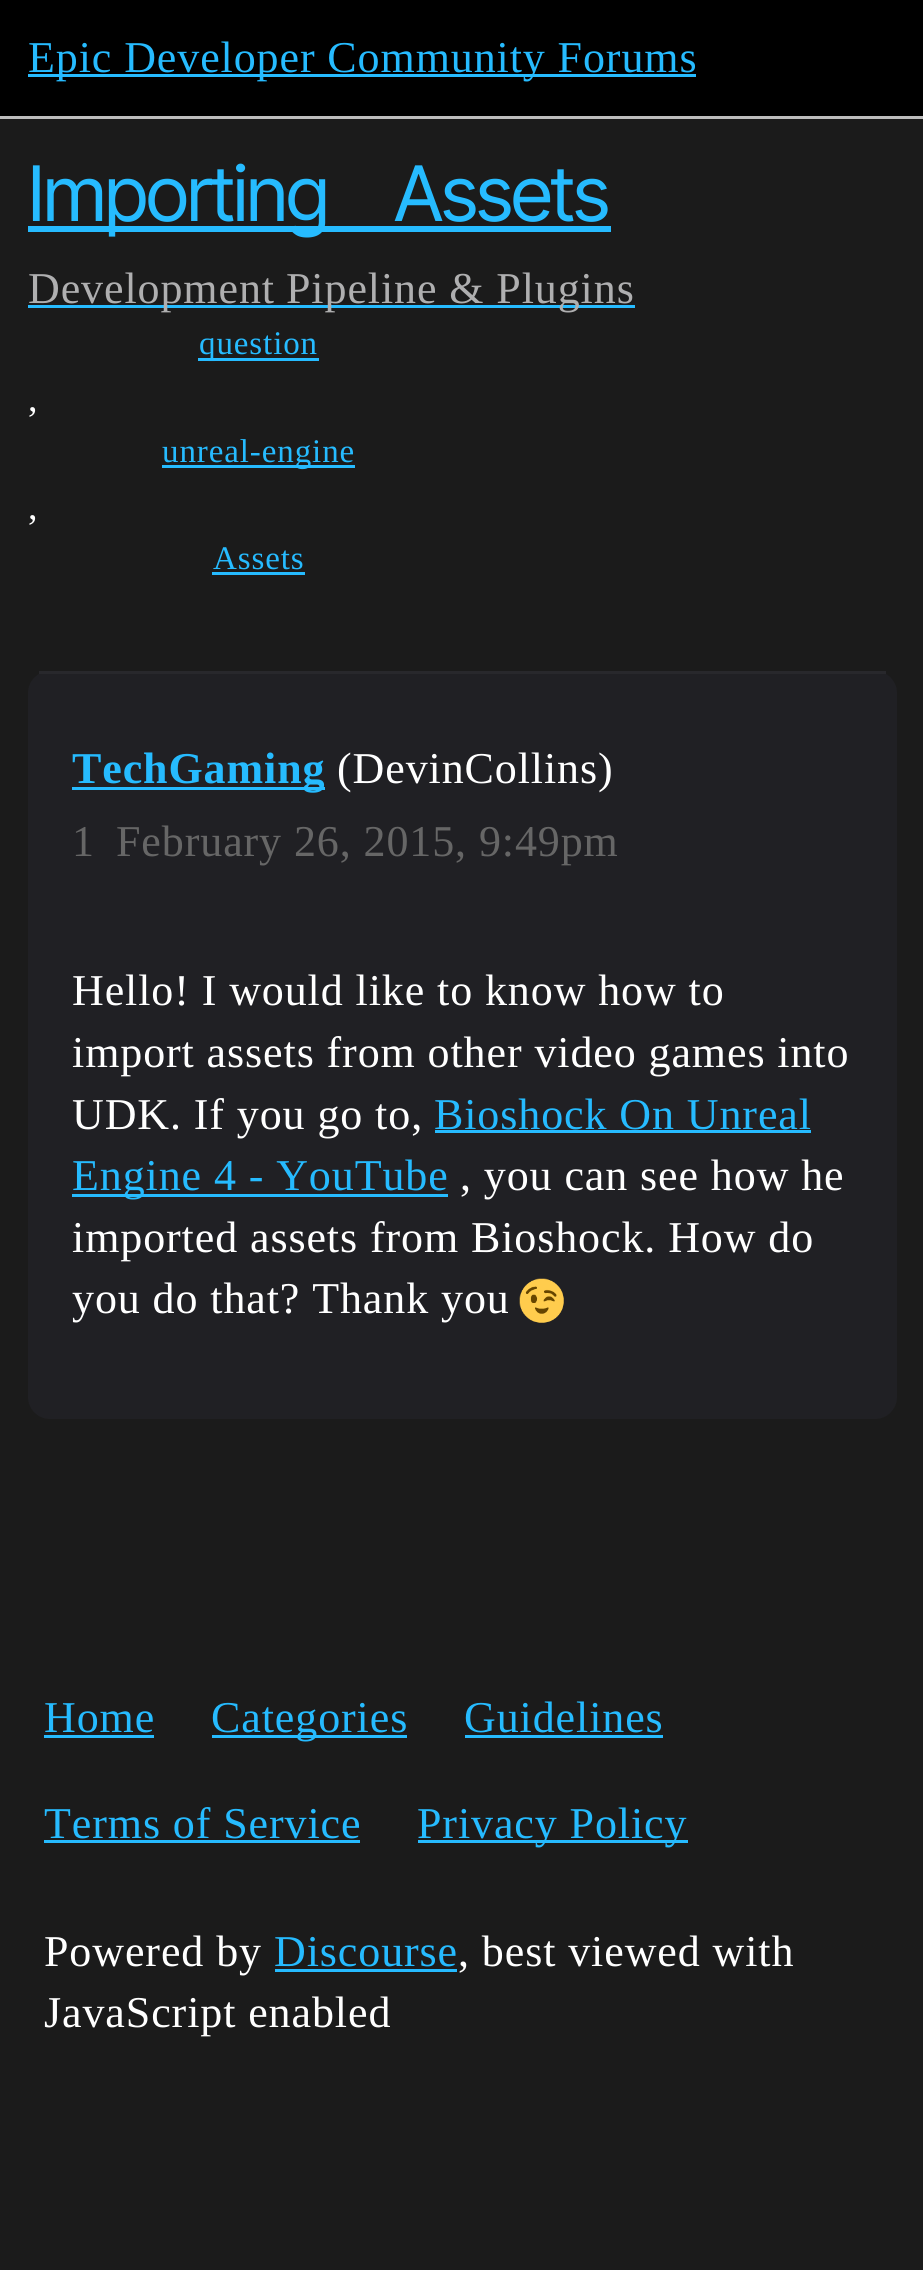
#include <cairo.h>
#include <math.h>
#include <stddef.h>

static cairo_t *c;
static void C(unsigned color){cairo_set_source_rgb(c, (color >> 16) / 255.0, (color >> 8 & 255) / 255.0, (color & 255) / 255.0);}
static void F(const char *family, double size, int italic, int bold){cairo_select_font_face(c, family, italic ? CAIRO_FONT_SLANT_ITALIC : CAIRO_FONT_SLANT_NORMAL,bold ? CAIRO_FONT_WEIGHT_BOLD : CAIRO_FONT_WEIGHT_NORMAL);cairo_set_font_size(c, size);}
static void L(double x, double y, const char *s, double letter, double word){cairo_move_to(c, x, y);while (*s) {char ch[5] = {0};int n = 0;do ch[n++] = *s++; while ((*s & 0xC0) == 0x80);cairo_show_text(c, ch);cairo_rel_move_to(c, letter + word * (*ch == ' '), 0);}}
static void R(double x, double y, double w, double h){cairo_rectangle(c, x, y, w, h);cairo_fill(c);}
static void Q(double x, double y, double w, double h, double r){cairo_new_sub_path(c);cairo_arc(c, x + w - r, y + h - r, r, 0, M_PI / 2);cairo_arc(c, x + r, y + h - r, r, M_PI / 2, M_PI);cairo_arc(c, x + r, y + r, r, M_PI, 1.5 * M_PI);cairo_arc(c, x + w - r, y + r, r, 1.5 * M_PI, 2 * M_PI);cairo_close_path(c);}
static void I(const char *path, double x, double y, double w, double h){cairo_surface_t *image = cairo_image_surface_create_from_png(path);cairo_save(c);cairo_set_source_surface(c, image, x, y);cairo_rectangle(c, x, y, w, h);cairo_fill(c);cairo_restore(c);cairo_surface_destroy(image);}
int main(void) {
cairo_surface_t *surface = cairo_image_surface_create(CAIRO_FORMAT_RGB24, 923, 2270);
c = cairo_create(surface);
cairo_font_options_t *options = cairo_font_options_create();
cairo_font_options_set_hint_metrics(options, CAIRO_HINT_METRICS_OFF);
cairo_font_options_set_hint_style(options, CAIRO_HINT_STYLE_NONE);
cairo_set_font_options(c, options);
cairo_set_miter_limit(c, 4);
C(0x1b1b1b);
cairo_paint(c);
C(0x000000);
R(0,0,923,116);
C(0xbdbdbd);
R(0,116,923,3);
C(0x26bbff);
R(28,74,668,3);
F("Liberation Serif",44,0,0);
L(28,72,"Epic Developer Community Forums",.9,0);
R(28,226,583,6);
F("Inter Tight",76.5,0,0);
L(28,221,"Importing Assets",-1.4,50);
R(28,305,607,3);
F("Liberation Serif",44,0,0);
C(0xafafb0);
L(28,303,"Development",.9,0);
L(286,303,"Pipeline & Plugins",.9,0);
C(0x26bbff);
R(198,358,121,3);
F("Liberation Serif",33,0,0);
L(199,354,"question",.9,0);
F("Liberation Serif",38,0,0);
C(0xffffff);
L(28,411,",",.9,0);
C(0x26bbff);
R(162,465,193,3);
F("Liberation Serif",33,0,0);
L(162,462,"unreal-engine",.9,0);
F("Liberation Serif",38,0,0);
C(0xffffff);
L(28,519,",",.9,0);
F("Liberation Serif",33,0,0);
C(0x26bbff);
L(213,569,"Assets",.9,0);
R(212,572,93,3);
C(0x202024);
Q(28,671,869,748,22);
cairo_fill(c);
C(0x28282c);
R(39,671,847,3);
C(0x26bbff);
R(72,787,253,3);
F("Liberation Serif",44,0,1);
L(72,783,"TechGaming",.9,0);
F("Liberation Serif",44,0,0);
C(0xffffff);
L(337,783,"(DevinCollins)",.9,0);
C(0x666666);
L(72,856,"1",.9,0);
L(116,856,"February 26, 2015, 9:49pm",.9,0);
C(0xffffff);
L(72,1005,"Hello! I would like to know how to",.9,0);
L(72,1067,"import assets from other video games into",.9,0);
L(72,1129,"UDK. If you go to,",.9,0);
C(0x26bbff);
L(434,1129,"Bioshock On Unreal",.9,0);
R(435,1130,376,3);
R(72,1194,376,3);
L(72,1190,"Engine 4 - YouTube",.9,0);
C(0xffffff);
L(460,1190,", you can see how he",.9,0);
L(72,1252,"imported assets from Bioshock. How do",.9,0);
L(72,1313,"you do that? Thank you",.9,0);
I("1.png",519,1278,45,45);
C(0x26bbff);
L(44,1732,"Home",.9,0);
R(44,1735,110,3);
R(212,1735,195,3);
L(211,1732,"Categories",.9,0);
L(464,1732,"Guidelines",.9,0);
R(465,1735,198,3);
L(44,1838,"Terms of Service",.9,0);
R(44,1840,316,3);
R(418,1840,270,3);
L(417,1838,"Privacy Policy",.9,0);
C(0xffffff);
L(44,1966,"Powered by",.9,0);
C(0x26bbff);
L(274,1966,"Discourse",.9,0);
R(275,1969,182,3);
C(0xffffff);
L(458,1966,", best viewed with",.9,0);
L(44,2027,"JavaScript enabled",.9,0);
cairo_surface_write_to_png(surface, "o.png");
cairo_font_options_destroy(options);
cairo_destroy(c);
cairo_surface_destroy(surface);
return 0;
}
